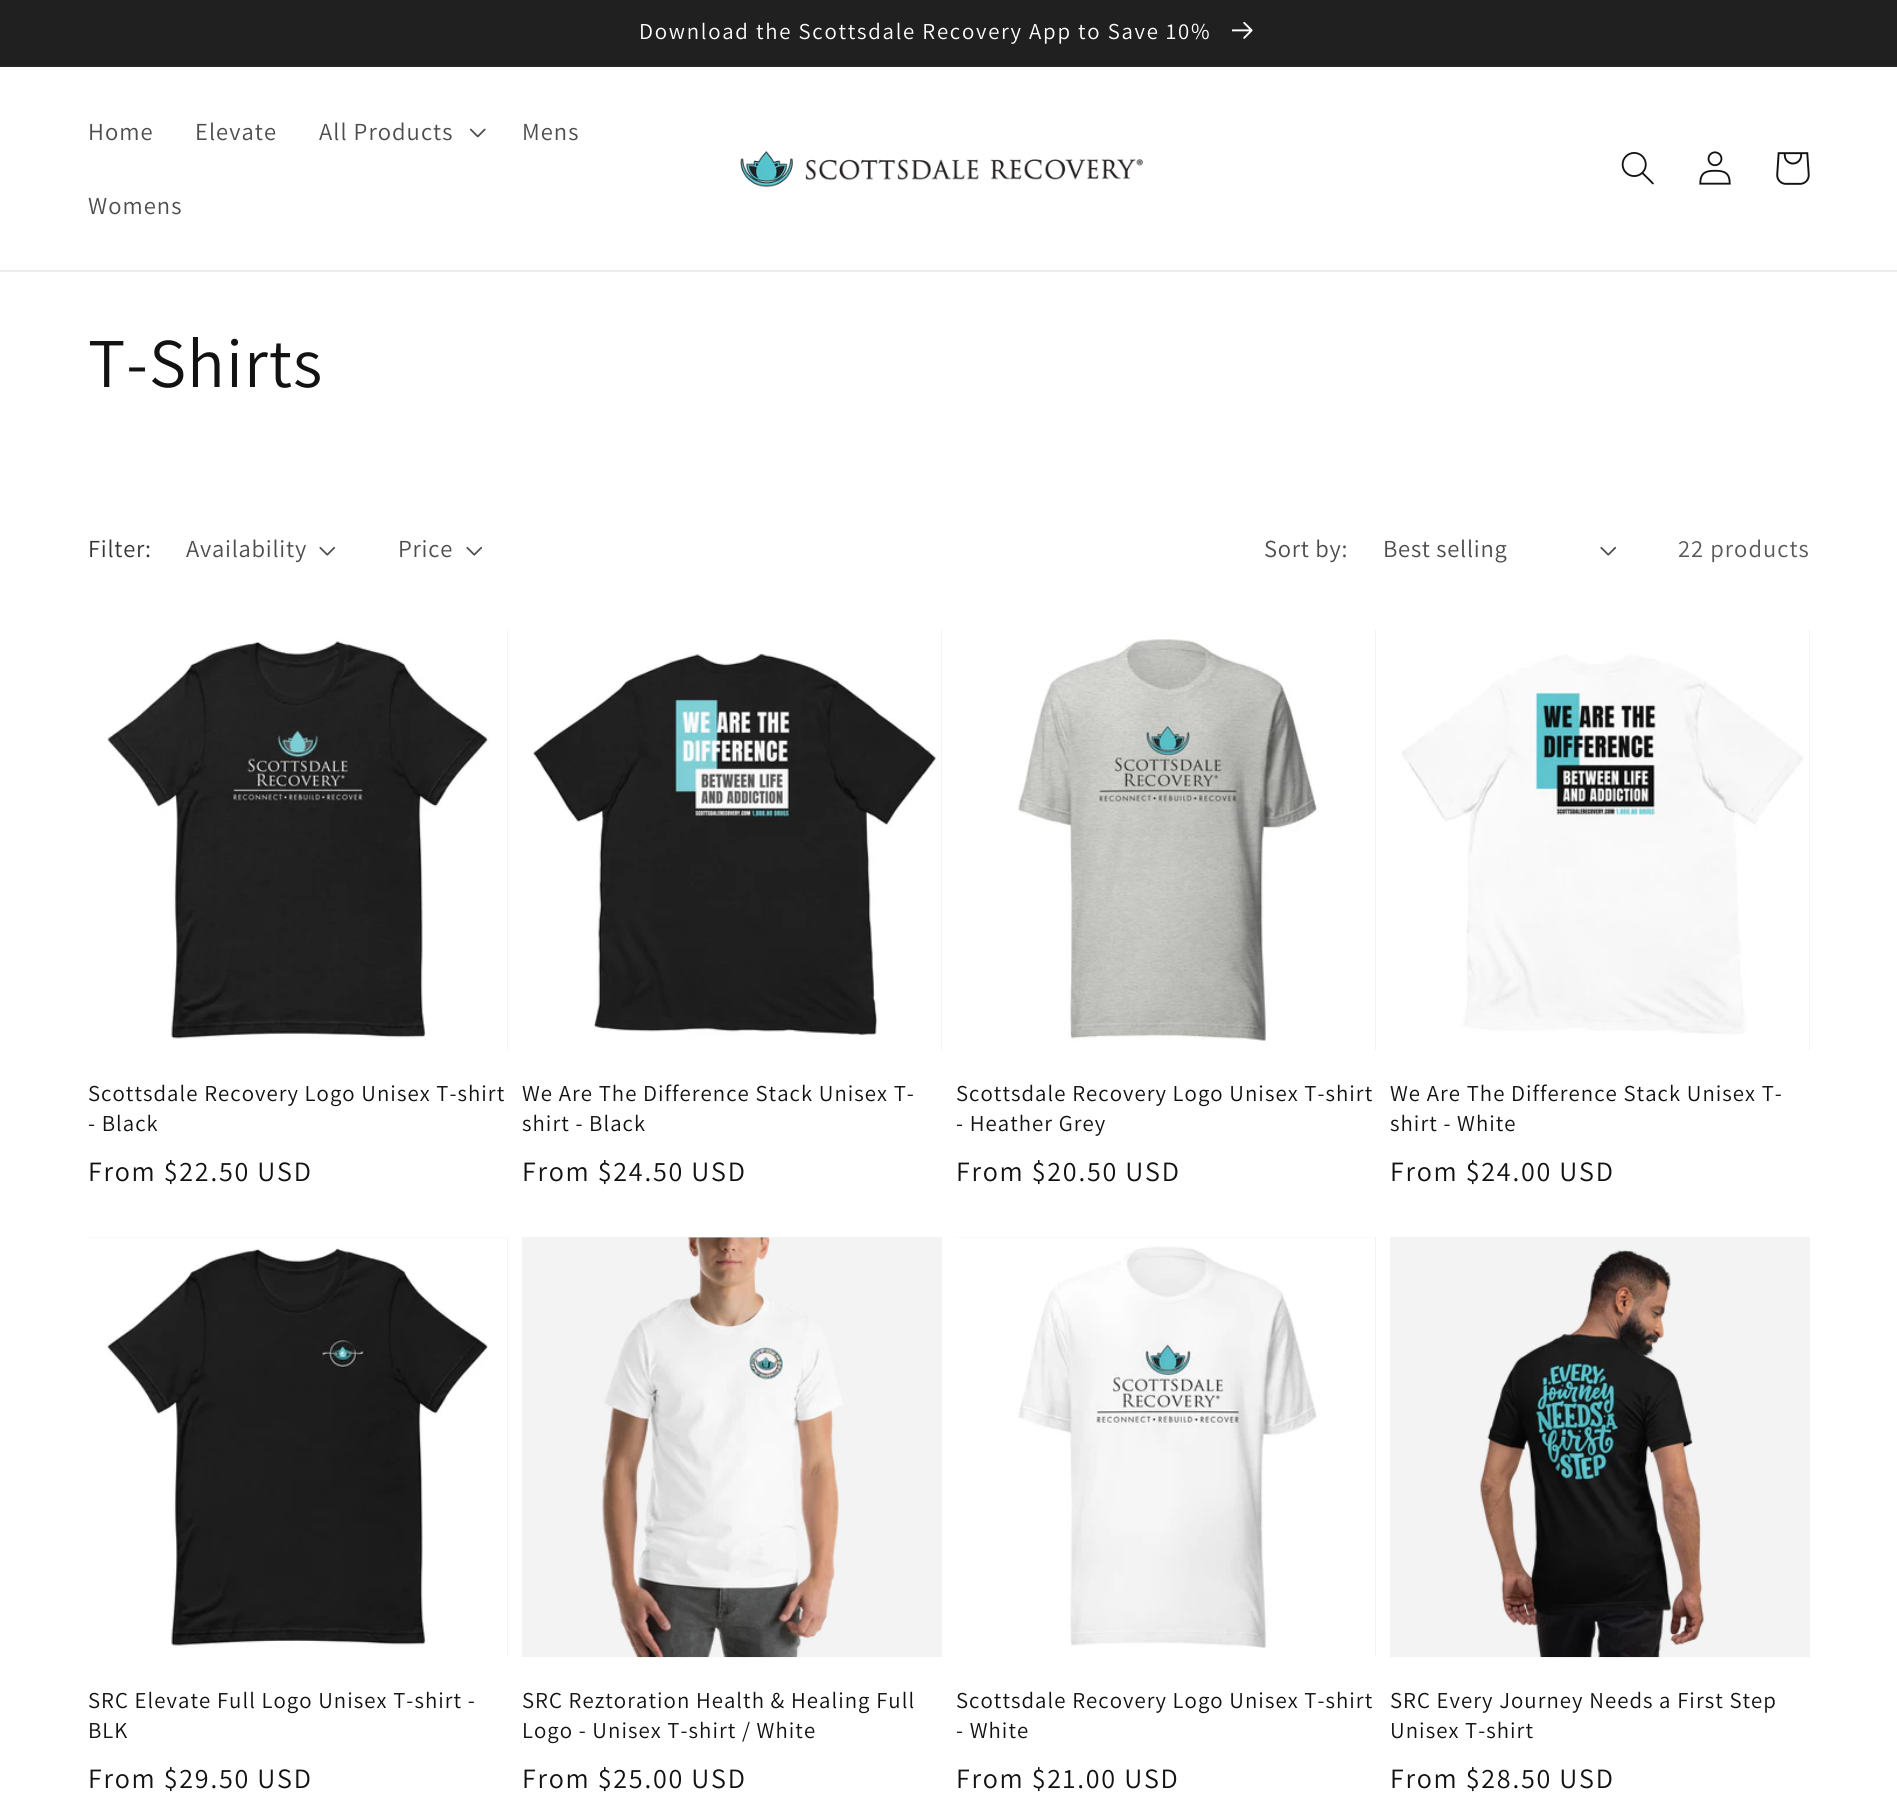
#include <cairo.h>
#include <math.h>
#include <stddef.h>

static cairo_t *c;
static void C(unsigned color){cairo_set_source_rgb(c, (color >> 16) / 255.0, (color >> 8 & 255) / 255.0, (color & 255) / 255.0);}
static void F(const char *family, double size, int italic, int bold){cairo_select_font_face(c, family, italic ? CAIRO_FONT_SLANT_ITALIC : CAIRO_FONT_SLANT_NORMAL,bold ? CAIRO_FONT_WEIGHT_BOLD : CAIRO_FONT_WEIGHT_NORMAL);cairo_set_font_size(c, size);}
static void L(double x, double y, const char *s, double letter, double word){cairo_move_to(c, x, y);while (*s) {char ch[5] = {0};int n = 0;do ch[n++] = *s++; while ((*s & 0xC0) == 0x80);cairo_show_text(c, ch);cairo_rel_move_to(c, letter + word * (*ch == ' '), 0);}}
static void R(double x, double y, double w, double h){cairo_rectangle(c, x, y, w, h);cairo_fill(c);}
static void I(const char *path, double x, double y, double w, double h){cairo_surface_t *image = cairo_image_surface_create_from_png(path);cairo_save(c);cairo_set_source_surface(c, image, x, y);cairo_rectangle(c, x, y, w, h);cairo_fill(c);cairo_restore(c);cairo_surface_destroy(image);}
int main(void) {
cairo_surface_t *surface = cairo_image_surface_create(CAIRO_FORMAT_RGB24, 1897, 1809);
c = cairo_create(surface);
cairo_font_options_t *options = cairo_font_options_create();
cairo_font_options_set_hint_metrics(options, CAIRO_HINT_METRICS_OFF);
cairo_font_options_set_hint_style(options, CAIRO_HINT_STYLE_NONE);
cairo_set_font_options(c, options);
cairo_set_miter_limit(c, 4);
C(0xffffff);
cairo_paint(c);
C(0x252525);
R(0,65,1897,2);
C(0x202020);
R(0,0,1897,65);
F("Assistant",22.75,0,0);
C(0xffffff);
L(639,39,"Download the Scottsdale Recovery App to Save 10%",1.75,0);
I("1.png",1232,22,21,17);
C(0xececec);
R(0,270,1897,2);
F("Assistant",24.5,0,0);
C(0x4d4d4d);
L(88,140,"Home",1.05,0);
L(195,140,"Elevate",1.05,0);
L(319,140,"All Products",1.05,0);
I("2.png",469,128,17,10);
L(522,140,"Mens",1.05,0);
L(88,214,"Womens",1.05,0);
I("3.png",740,151,403,37);
I("4.png",1621,152,33,33);
I("5.png",1699,151,32,34);
I("6.png",1776,152,34,33);
F("Assistant",70,0,0);
C(0x121212);
L(88,387,"T-Shirts",1.05,0);
F("Assistant",24.5,0,0);
C(0x363636);
L(88,557,"Filter:",.75,0);
C(0x4d4d4d);
L(186,557,"Availability",.75,0);
I("7.png",319,546,17,10);
L(398,557,"Price",.75,0);
I("7.png",466,546,17,10);
L(1264,557,"Sort by:",.75,0);
L(1383,557,"Best selling",.75,0);
I("7.png",1600,546,17,10);
C(0x595959);
L(1678,557,"22 products",1.05,0);
C(0xf3f3f3);
R(507,630,1,420);
I("8.png",88,630,419,420);
F("Assistant",22.75,0,0);
C(0x121212);
L(88,1101,"Scottsdale Recovery Logo Unisex T-shirt",1.05,0);
L(88,1131,"- Black",1.05,0);
F("Assistant",28,0,0);
L(88,1181,"From $22.50 USD",1.75,0);
C(0xf3f3f3);
R(941,630,1,420);
I("9.png",522,630,419,420);
F("Assistant",22.75,0,0);
C(0x121212);
L(522,1101,"We Are The Difference Stack Unisex T-",1.05,0);
L(522,1131,"shirt - Black",1.05,0);
F("Assistant",28,0,0);
L(522,1181,"From $24.50 USD",1.75,0);
C(0xf3f3f3);
R(1375,630,1,420);
I("10.png",956,630,419,420);
F("Assistant",22.75,0,0);
C(0x121212);
L(956,1101,"Scottsdale Recovery Logo Unisex T-shirt",1.05,0);
L(956,1131,"- Heather Grey",1.05,0);
F("Assistant",28,0,0);
L(956,1181,"From $20.50 USD",1.75,0);
C(0xf3f3f3);
R(1809,630,1,420);
I("11.png",1390,630,419,420);
F("Assistant",22.75,0,0);
C(0x121212);
L(1390,1101,"We Are The Difference Stack Unisex T-",1.05,0);
L(1390,1131,"shirt - White",1.05,0);
F("Assistant",28,0,0);
L(1390,1181,"From $24.00 USD",1.75,0);
C(0xf3f3f3);
R(88,1237,420,420);
I("12.png",88,1237,419,420);
F("Assistant",22.75,0,0);
C(0x121212);
L(88,1708,"SRC Elevate Full Logo Unisex T-shirt -",1.05,0);
L(88,1738,"BLK",1.05,0);
F("Assistant",28,0,0);
L(88,1788,"From $29.50 USD",1.75,0);
C(0xf3f3f3);
R(522,1237,420,420);
I("13.png",602,1237,241,421);
F("Assistant",22.75,0,0);
C(0x121212);
L(522,1708,"SRC Reztoration Health & Healing Full",1.05,0);
L(522,1738,"Logo - Unisex T-shirt / White",1.05,0);
F("Assistant",28,0,0);
L(522,1788,"From $25.00 USD",1.75,0);
C(0xf3f3f3);
R(956,1237,420,420);
I("14.png",956,1237,419,420);
F("Assistant",22.75,0,0);
C(0x121212);
L(956,1708,"Scottsdale Recovery Logo Unisex T-shirt",1.05,0);
L(956,1738,"- White",1.05,0);
F("Assistant",28,0,0);
L(956,1788,"From $21.00 USD",1.75,0);
C(0xf3f3f3);
R(1390,1237,420,420);
I("15.png",1479,1250,226,408);
F("Assistant",22.75,0,0);
C(0x121212);
L(1390,1708,"SRC Every Journey Needs a First Step",1.05,0);
L(1390,1738,"Unisex T-shirt",1.05,0);
F("Assistant",28,0,0);
L(1390,1788,"From $28.50 USD",1.75,0);
cairo_surface_write_to_png(surface, "o.png");
cairo_font_options_destroy(options);
cairo_destroy(c);
cairo_surface_destroy(surface);
return 0;
}
